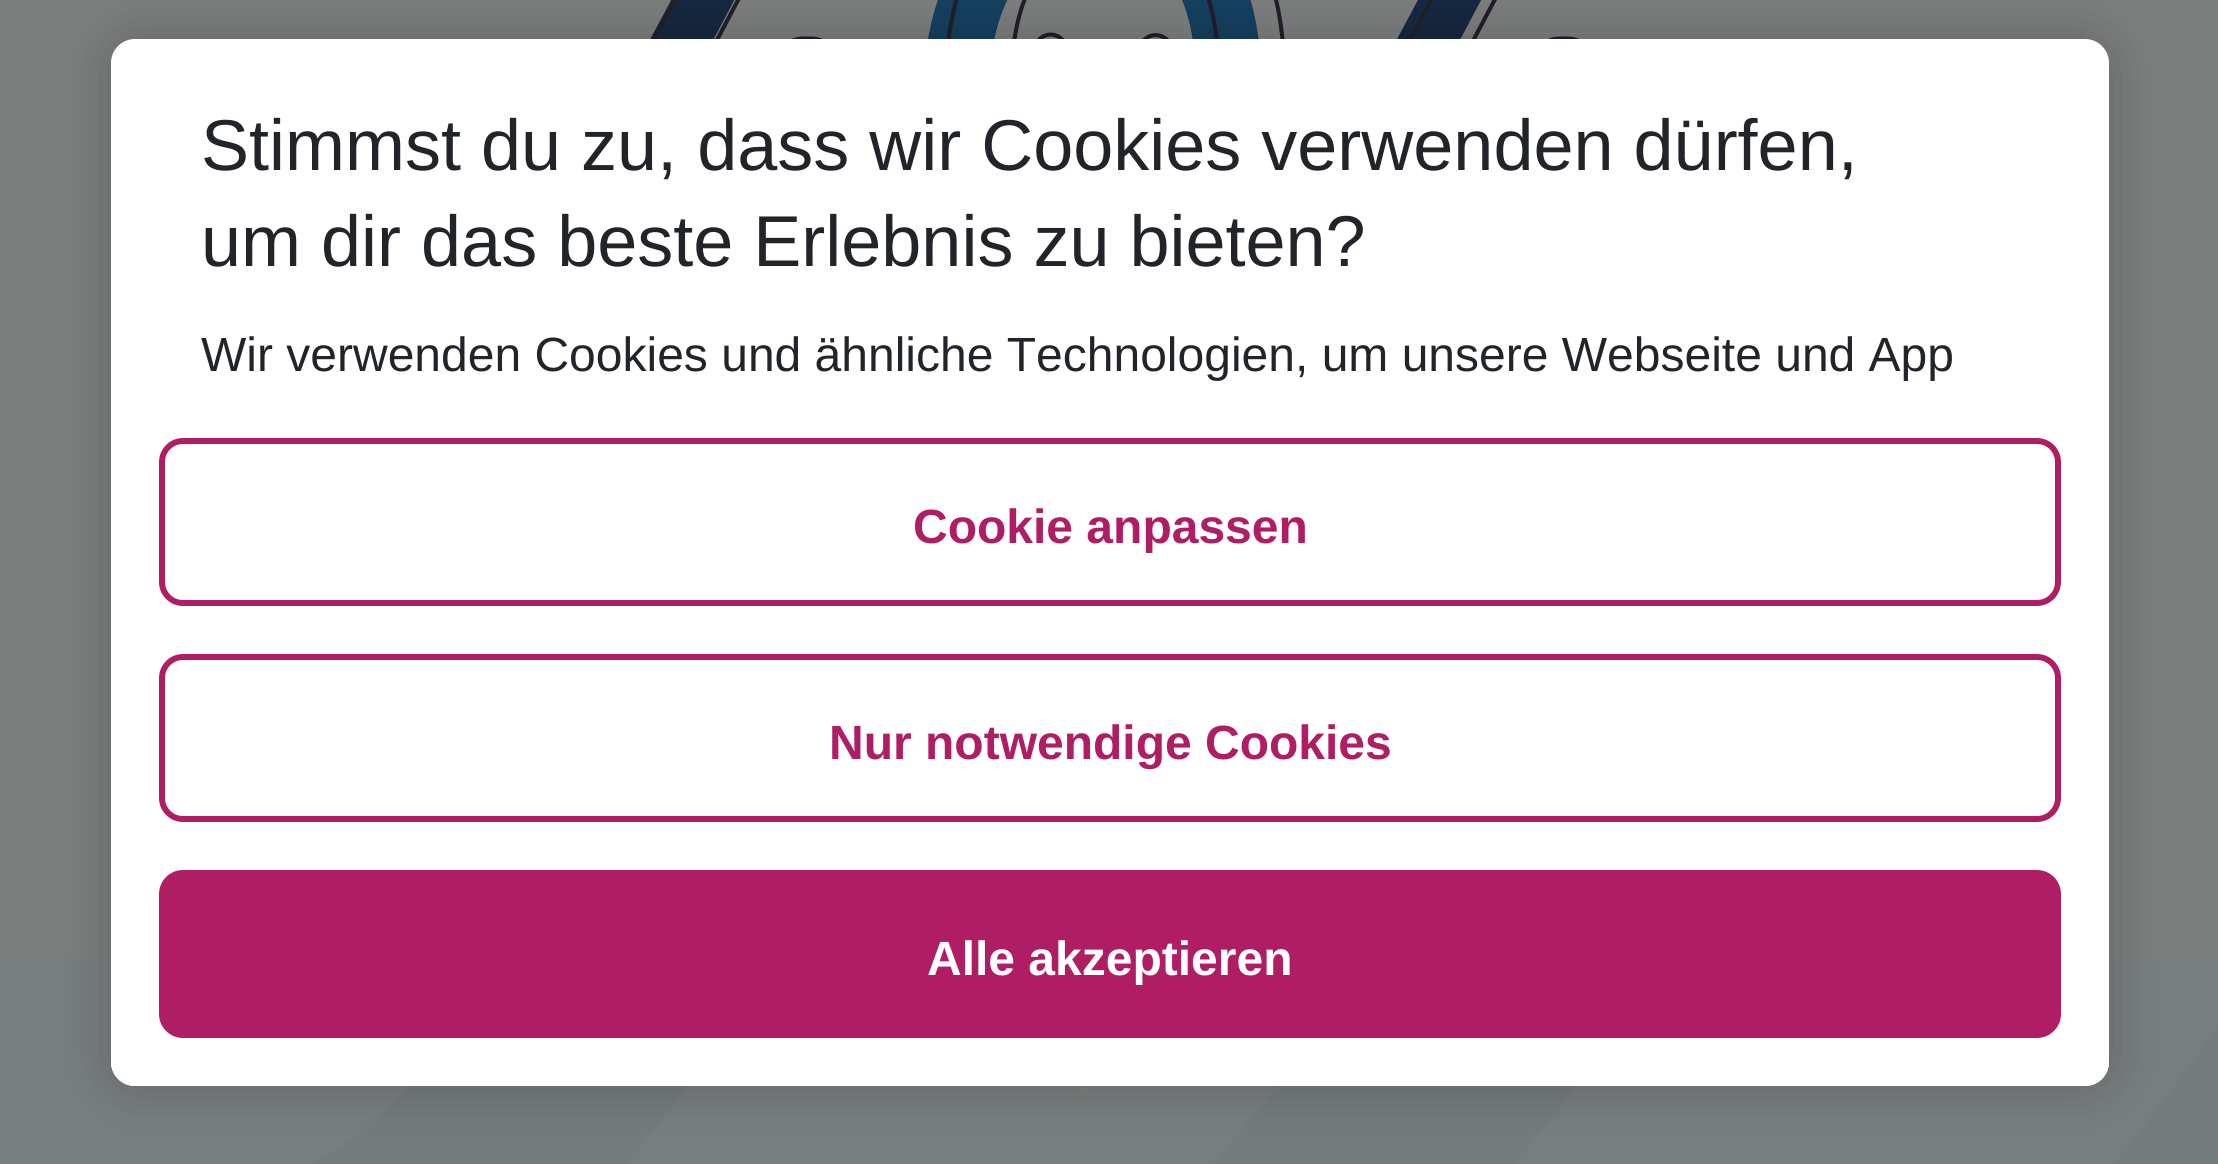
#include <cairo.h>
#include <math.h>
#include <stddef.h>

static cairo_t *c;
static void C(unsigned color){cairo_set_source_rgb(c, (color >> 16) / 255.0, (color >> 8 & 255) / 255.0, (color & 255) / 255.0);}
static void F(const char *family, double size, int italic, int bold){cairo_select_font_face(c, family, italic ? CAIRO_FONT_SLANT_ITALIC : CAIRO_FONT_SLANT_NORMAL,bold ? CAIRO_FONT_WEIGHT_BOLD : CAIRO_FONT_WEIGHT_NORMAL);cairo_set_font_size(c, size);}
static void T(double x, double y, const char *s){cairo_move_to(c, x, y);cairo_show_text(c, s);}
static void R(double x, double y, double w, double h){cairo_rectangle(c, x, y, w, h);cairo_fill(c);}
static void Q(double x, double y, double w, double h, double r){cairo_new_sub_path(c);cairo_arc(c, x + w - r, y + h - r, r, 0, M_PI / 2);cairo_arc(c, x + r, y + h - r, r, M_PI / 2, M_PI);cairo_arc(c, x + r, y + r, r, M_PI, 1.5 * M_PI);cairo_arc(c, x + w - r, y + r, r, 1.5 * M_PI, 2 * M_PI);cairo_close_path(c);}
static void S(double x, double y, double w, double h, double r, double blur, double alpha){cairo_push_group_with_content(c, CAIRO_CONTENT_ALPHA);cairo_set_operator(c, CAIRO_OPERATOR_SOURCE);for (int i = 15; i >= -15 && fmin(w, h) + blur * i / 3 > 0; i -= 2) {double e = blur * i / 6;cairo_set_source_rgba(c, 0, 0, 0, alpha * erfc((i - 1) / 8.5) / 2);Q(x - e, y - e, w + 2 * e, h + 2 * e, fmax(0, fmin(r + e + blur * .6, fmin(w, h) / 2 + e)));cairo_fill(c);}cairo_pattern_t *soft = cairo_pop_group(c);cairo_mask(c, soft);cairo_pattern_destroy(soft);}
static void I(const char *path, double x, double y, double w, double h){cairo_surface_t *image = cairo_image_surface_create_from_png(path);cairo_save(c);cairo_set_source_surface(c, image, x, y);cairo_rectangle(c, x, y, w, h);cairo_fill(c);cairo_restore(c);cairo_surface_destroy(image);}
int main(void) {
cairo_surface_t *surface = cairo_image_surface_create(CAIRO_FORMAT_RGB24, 2218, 1164);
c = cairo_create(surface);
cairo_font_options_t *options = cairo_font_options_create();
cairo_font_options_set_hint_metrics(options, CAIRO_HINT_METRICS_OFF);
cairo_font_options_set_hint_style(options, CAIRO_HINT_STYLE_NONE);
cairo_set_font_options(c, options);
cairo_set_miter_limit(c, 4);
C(0x7c7d7d);
cairo_paint(c);
I("1.png",650,0,929,39);
C(0x737b7d);
R(0,957,2218,207);
I("2.png",0,957,2218,207);
I("3.png",1075,1086,16,7);
C(0x000000);
S(111,39,1998,1047,24,27,.2);
C(0xffffff);
Q(111,39,1998,1047,24);
cairo_fill(c);
F("Liberation Sans",72,0,0);
C(0x212529);
T(201,170,"Stimmst du zu, dass wir Cookies verwenden dürfen,");
T(201,266,"um dir das beste Erlebnis zu bieten?");
F("Liberation Sans",48,0,0);
T(201,371,"Wir verwenden Cookies und ähnliche Technologien, um unsere Webseite und App");
C(0xffffff);
Q(111,390,1998,696,24);
cairo_fill(c);
Q(162,441,1896,162,21);
C(0xaf1e65);
cairo_set_line_width(c,6);
cairo_stroke(c);
F("Liberation Sans",48,0,1);
T(913,543,"Cookie anpassen");
Q(162,657,1896,162,21);
cairo_stroke(c);
T(829,759,"Nur notwendige Cookies");
Q(162,873,1896,162,21);
cairo_fill_preserve(c);
cairo_stroke(c);
C(0xffffff);
T(927,975,"Alle akzeptieren");
cairo_surface_write_to_png(surface, "o.png");
cairo_font_options_destroy(options);
cairo_destroy(c);
cairo_surface_destroy(surface);
return 0;
}
